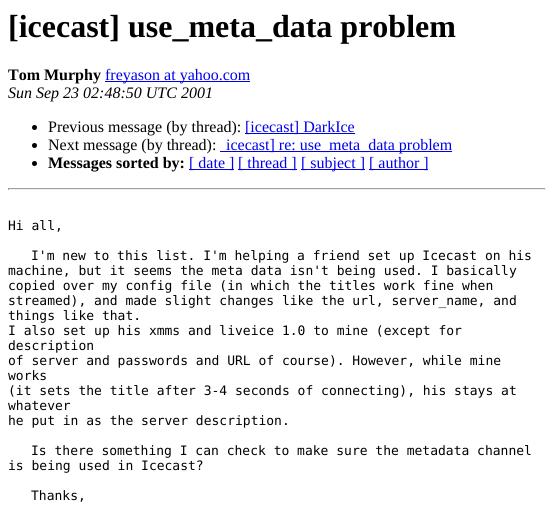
#include <cairo.h>
#include <math.h>
#include <stddef.h>

static cairo_t *c;
static void C(unsigned color){cairo_set_source_rgb(c, (color >> 16) / 255.0, (color >> 8 & 255) / 255.0, (color & 255) / 255.0);}
static void F(const char *family, double size, int italic, int bold){cairo_select_font_face(c, family, italic ? CAIRO_FONT_SLANT_ITALIC : CAIRO_FONT_SLANT_NORMAL,bold ? CAIRO_FONT_WEIGHT_BOLD : CAIRO_FONT_WEIGHT_NORMAL);cairo_set_font_size(c, size);}
static void T(double x, double y, const char *s){cairo_move_to(c, x, y);cairo_show_text(c, s);}
static void R(double x, double y, double w, double h){cairo_rectangle(c, x, y, w, h);cairo_fill(c);}
int main(void) {
cairo_surface_t *surface = cairo_image_surface_create(CAIRO_FORMAT_RGB24, 554, 526);
c = cairo_create(surface);
cairo_font_options_t *options = cairo_font_options_create();
cairo_font_options_set_hint_metrics(options, CAIRO_HINT_METRICS_OFF);
cairo_font_options_set_hint_style(options, CAIRO_HINT_STYLE_NONE);
cairo_set_font_options(c, options);
cairo_set_miter_limit(c, 4);
C(0xffffff);
cairo_paint(c);
F("Liberation Serif",32,0,1);
C(0x000000);
T(8,37,"[icecast] use_meta_data problem");
F("Liberation Serif",16,0,1);
T(8,80,"Tom Murphy");
C(0x0000ee);
R(105,81,145,1);
F("Liberation Serif",16,0,0);
T(105,80,"freyason at yahoo.com");
F("Liberation Serif",16,1,0);
C(0x000000);
T(8,98,"Sun Sep 23 02:48:50 UTC 2001");
cairo_new_path(c);
cairo_arc(c,34.5,127.5,2.5,0,2 * M_PI);
cairo_fill(c);
F("Liberation Serif",16,0,0);
T(48,132,"Previous message (by thread):");
C(0x0000ee);
R(245,133,110,1);
T(245,132,"[icecast] DarkIce");
C(0x000000);
cairo_new_path(c);
cairo_arc(c,34.5,145.5,2.5,0,2 * M_PI);
cairo_fill(c);
T(48,150,"Next message (by thread):");
C(0x0000ee);
R(220,151,232,1);
T(226,150,"icecast] re: use_meta_data problem");
C(0x000000);
cairo_new_path(c);
cairo_arc(c,34.5,163.5,2.5,0,2 * M_PI);
cairo_fill(c);
F("Liberation Serif",16,0,1);
T(48,168,"Messages sorted by:");
C(0x0000ee);
R(189,169,45,1);
F("Liberation Serif",16,0,0);
T(189,168,"[ date ]");
R(238,169,59,1);
T(238,168,"[ thread ]");
R(301,169,64,1);
T(301,168,"[ subject ]");
R(369,169,59,1);
T(369,168,"[ author ]");
C(0x9f9f9f);
R(8,188,538,1);
C(0xeeeeee);
R(545,188,1,2);
R(8,189,538,1);
C(0x9f9f9f);
R(8,188,1,2);
F("DejaVu Sans Mono",13,0,0);
C(0x000000);
T(8,230,"Hi all,");
T(31,260,"I'm new to this list. I'm helping a friend set up Icecast on his");
T(8,275,"machine, but it seems the meta data isn't being used. I basically");
T(8,290,"copied over my config file (in which the titles work fine when");
T(8,305,"streamed), and made slight changes like the url, server_name, and");
T(8,320,"things like that.");
T(8,335,"I also set up his xmms and liveice 1.0 to mine (except for");
T(8,350,"description");
T(8,365,"of server and passwords and URL of course). However, while mine");
T(8,380,"works");
T(8,395,"(it sets the title after 3-4 seconds of connecting), his stays at");
T(8,410,"whatever");
T(8,425,"he put in as the server description.");
T(31,455,"Is there something I can check to make sure the metadata channel");
T(8,470,"is being used in Icecast?");
T(31,500,"Thanks,");
cairo_surface_write_to_png(surface, "o.png");
cairo_font_options_destroy(options);
cairo_destroy(c);
cairo_surface_destroy(surface);
return 0;
}
